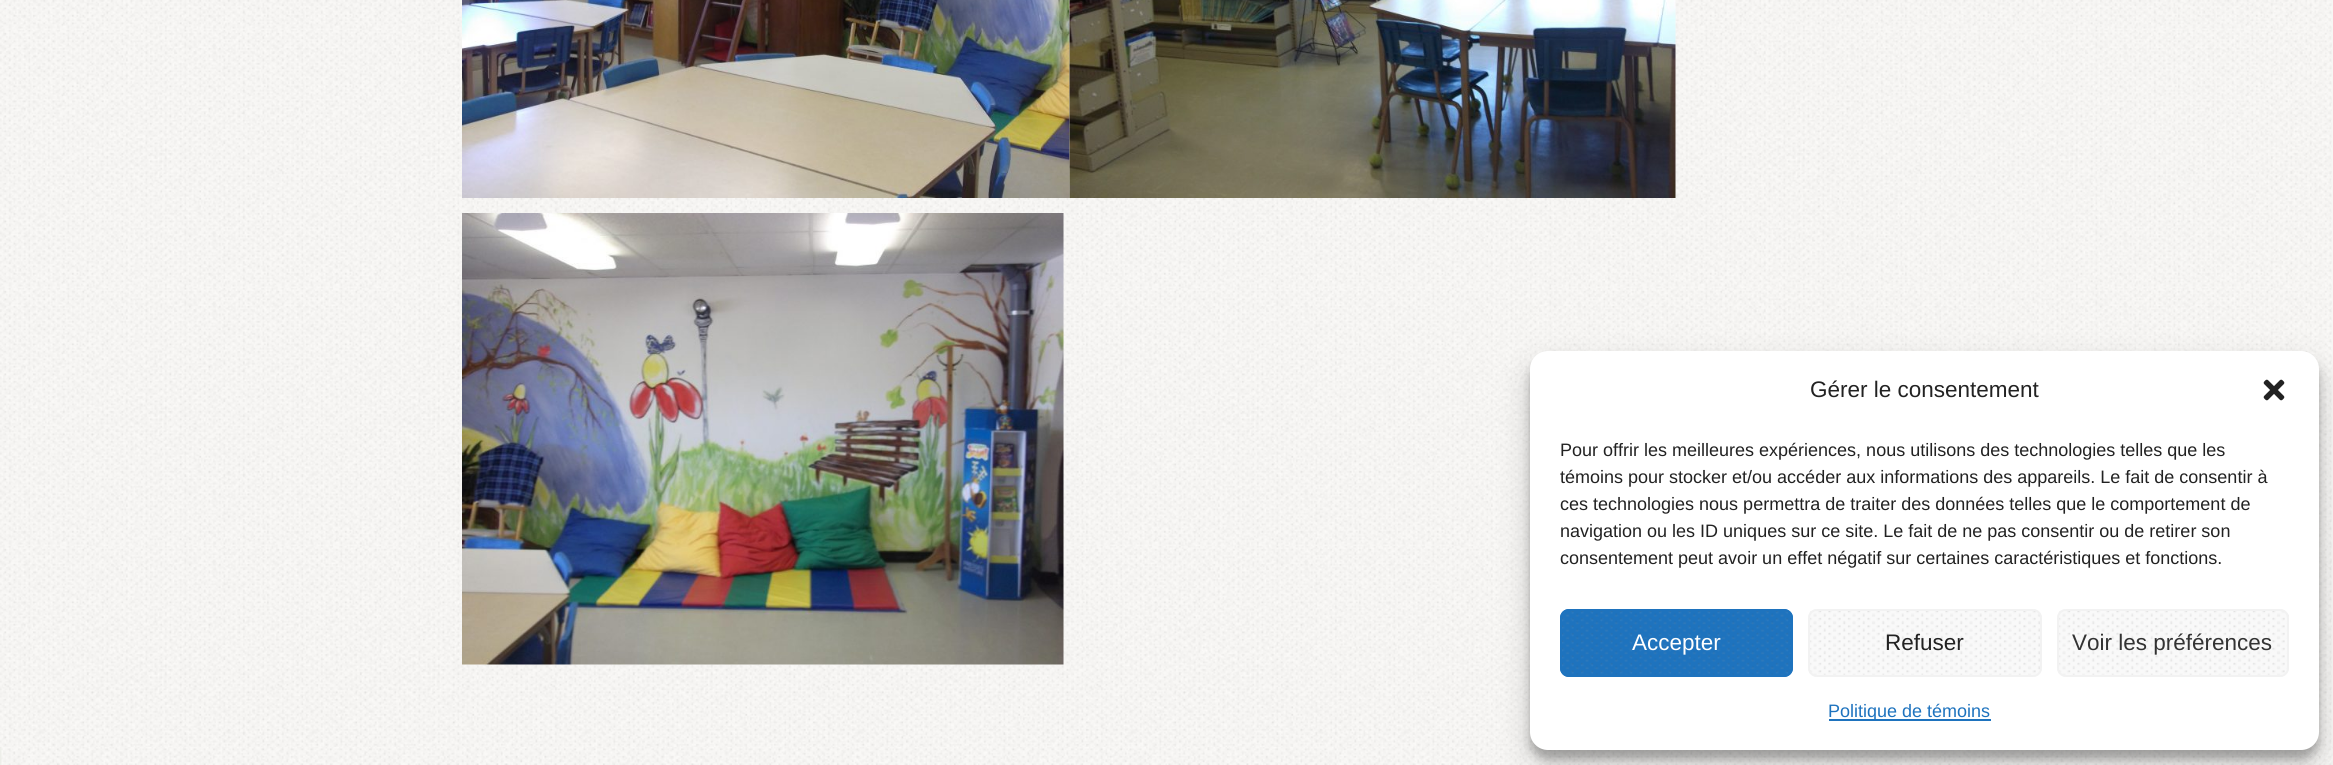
#include <cairo.h>
#include <math.h>
#include <stddef.h>

static cairo_t *c;
static void C(unsigned color){cairo_set_source_rgb(c, (color >> 16) / 255.0, (color >> 8 & 255) / 255.0, (color & 255) / 255.0);}
static void F(const char *family, double size, int italic, int bold){cairo_select_font_face(c, family, italic ? CAIRO_FONT_SLANT_ITALIC : CAIRO_FONT_SLANT_NORMAL,bold ? CAIRO_FONT_WEIGHT_BOLD : CAIRO_FONT_WEIGHT_NORMAL);cairo_set_font_size(c, size);}
static void T(double x, double y, const char *s){cairo_move_to(c, x, y);cairo_show_text(c, s);}
static void R(double x, double y, double w, double h){cairo_rectangle(c, x, y, w, h);cairo_fill(c);}
static void Q(double x, double y, double w, double h, double r){cairo_new_sub_path(c);cairo_arc(c, x + w - r, y + h - r, r, 0, M_PI / 2);cairo_arc(c, x + r, y + h - r, r, M_PI / 2, M_PI);cairo_arc(c, x + r, y + r, r, M_PI, 1.5 * M_PI);cairo_arc(c, x + w - r, y + r, r, 1.5 * M_PI, 2 * M_PI);cairo_close_path(c);}
static void S(double x, double y, double w, double h, double r, double blur, double alpha){cairo_push_group_with_content(c, CAIRO_CONTENT_ALPHA);cairo_set_operator(c, CAIRO_OPERATOR_SOURCE);for (int i = 15; i >= -15 && fmin(w, h) + blur * i / 3 > 0; i -= 2) {double e = blur * i / 6;cairo_set_source_rgba(c, 0, 0, 0, alpha * erfc((i - 1) / 8.5) / 2);Q(x - e, y - e, w + 2 * e, h + 2 * e, fmax(0, fmin(r + e + blur * .6, fmin(w, h) / 2 + e)));cairo_fill(c);}cairo_pattern_t *soft = cairo_pop_group(c);cairo_mask(c, soft);cairo_pattern_destroy(soft);}
static void I(const char *path, double x, double y, double w, double h){cairo_surface_t *image = cairo_image_surface_create_from_png(path);cairo_save(c);cairo_set_source_surface(c, image, x, y);cairo_rectangle(c, x, y, w, h);cairo_fill(c);cairo_restore(c);cairo_surface_destroy(image);}
int main(void) {
cairo_surface_t *surface = cairo_image_surface_create(CAIRO_FORMAT_RGB24, 2333, 765);
c = cairo_create(surface);
cairo_font_options_t *options = cairo_font_options_create();
cairo_font_options_set_hint_metrics(options, CAIRO_HINT_METRICS_OFF);
cairo_font_options_set_hint_style(options, CAIRO_HINT_STYLE_NONE);
cairo_set_font_options(c, options);
cairo_set_miter_limit(c, 4);
C(0xffffff);
cairo_paint(c);
C(0xf7f6f4);
R(2332,0,1,747);
I("1.png",0,0,2332,747);
I("2.png",462,0,608,198);
I("3.png",1069,0,607,198);
I("4.png",462,213,602,452);
I("10.png",0,747,2,18);
I("5.png",1,747,2332,18);
C(0x000000);
S(1530,360,789,399,18,4.5,.23);
S(1530,366,789,399,18,15,.19);
C(0xffffff);
Q(1530,351,789,399,18);
cairo_fill(c);
F("Liberation Sans",22.5,0,0);
C(0x222222);
T(1810,397,"Gérer le consentement");
I("6.png",2263,379,22,22);
F("Liberation Sans",18,0,0);
T(1560,456,"Pour offrir les meilleures expériences, nous utilisons des technologies telles que les");
T(1560,483,"témoins pour stocker et/ou accéder aux informations des appareils. Le fait de consentir à");
T(1560,510,"ces technologies nous permettra de traiter des données telles que le comportement de");
T(1560,537,"navigation ou les ID uniques sur ce site. Le fait de ne pas consentir ou de retirer son");
T(1560,564,"consentement peut avoir un effet négatif sur certaines caractéristiques et fonctions.");
C(0x1e73be);
Q(1560,609,233,68,9);
cairo_fill(c);
I("7.png",1562,611,229,64);
Q(1561,610,231,66,8);
cairo_stroke(c);
F("Liberation Sans",22.5,0,0);
C(0xffffff);
T(1632,650,"Accepter");
C(0xf9f9f9);
Q(1808,609,234,68,9);
cairo_fill(c);
I("8.png",1809,611,231,64);
Q(1809,610,232,66,8);
C(0xf2f2f2);
cairo_stroke(c);
C(0x222222);
T(1885,650,"Refuser");
C(0xf9f9f9);
Q(2057,609,232,68,9);
cairo_fill(c);
I("9.png",2058,610,231,65);
Q(2058,610,230,66,8);
C(0xf2f2f2);
cairo_stroke(c);
C(0x333333);
T(2072,650,"Voir les préférences");
C(0x1e73be);
R(1829,719,162,2);
F("Liberation Sans",18,0,0);
T(1828,717,"Politique de témoins");
cairo_surface_write_to_png(surface, "o.png");
cairo_font_options_destroy(options);
cairo_destroy(c);
cairo_surface_destroy(surface);
return 0;
}
